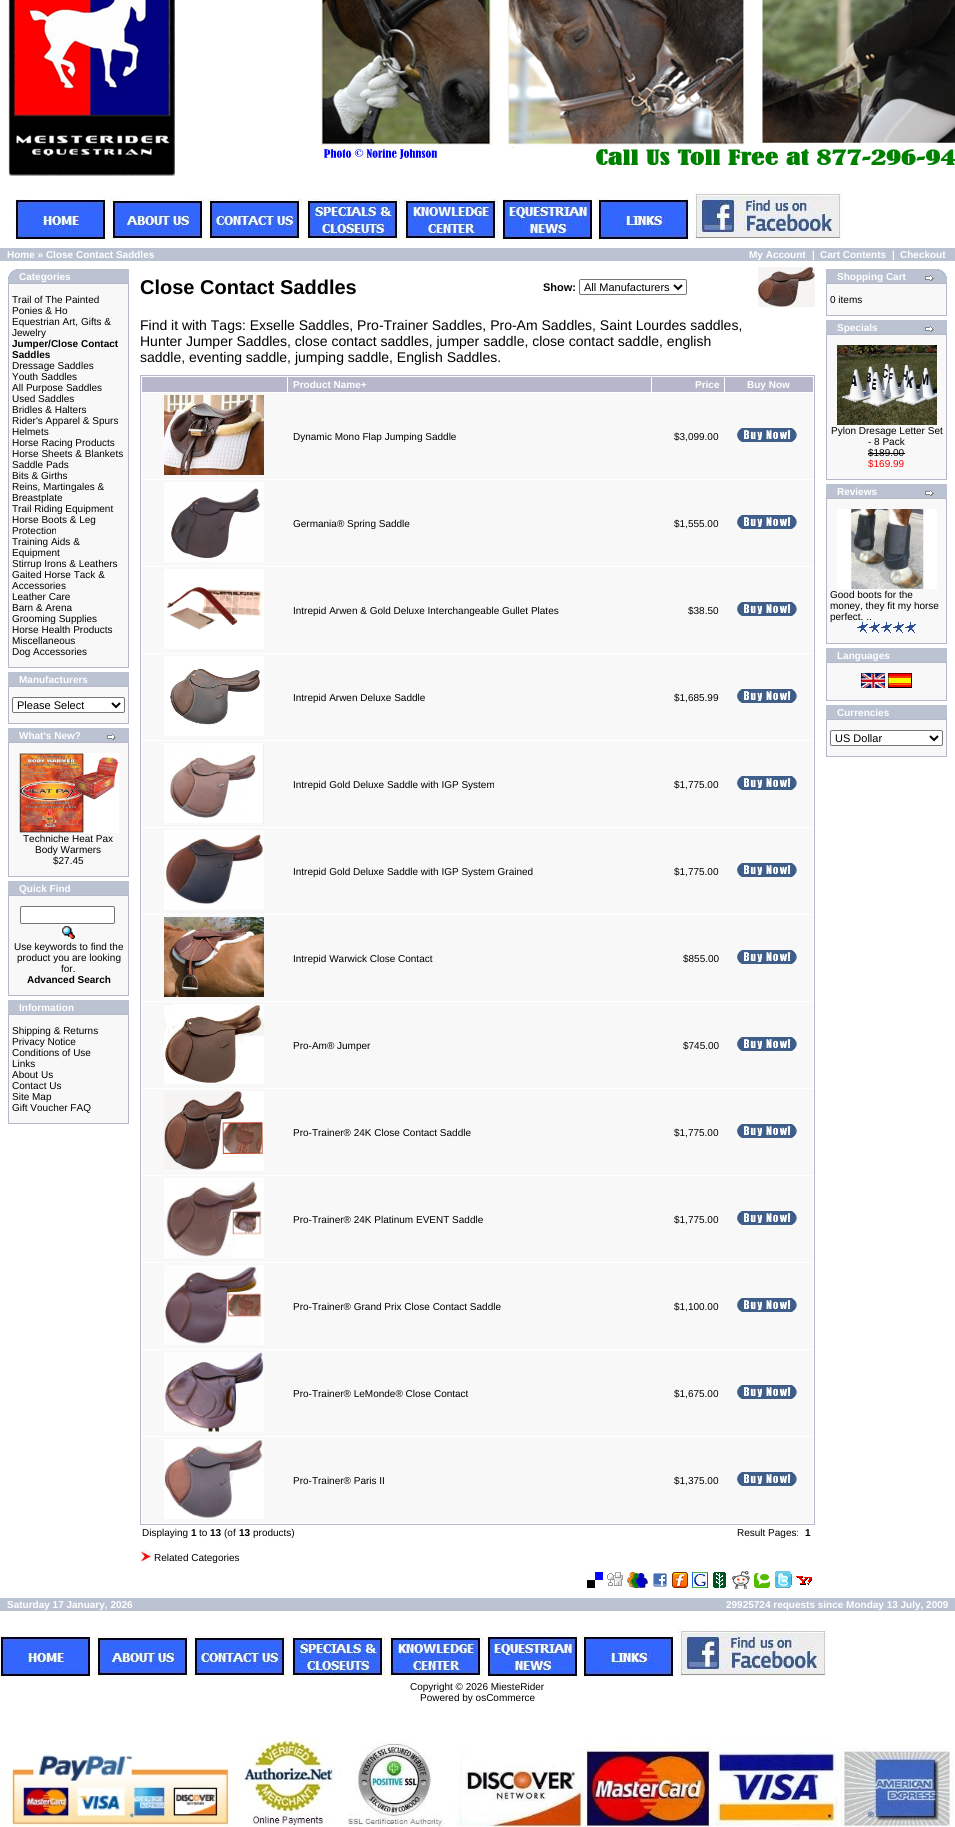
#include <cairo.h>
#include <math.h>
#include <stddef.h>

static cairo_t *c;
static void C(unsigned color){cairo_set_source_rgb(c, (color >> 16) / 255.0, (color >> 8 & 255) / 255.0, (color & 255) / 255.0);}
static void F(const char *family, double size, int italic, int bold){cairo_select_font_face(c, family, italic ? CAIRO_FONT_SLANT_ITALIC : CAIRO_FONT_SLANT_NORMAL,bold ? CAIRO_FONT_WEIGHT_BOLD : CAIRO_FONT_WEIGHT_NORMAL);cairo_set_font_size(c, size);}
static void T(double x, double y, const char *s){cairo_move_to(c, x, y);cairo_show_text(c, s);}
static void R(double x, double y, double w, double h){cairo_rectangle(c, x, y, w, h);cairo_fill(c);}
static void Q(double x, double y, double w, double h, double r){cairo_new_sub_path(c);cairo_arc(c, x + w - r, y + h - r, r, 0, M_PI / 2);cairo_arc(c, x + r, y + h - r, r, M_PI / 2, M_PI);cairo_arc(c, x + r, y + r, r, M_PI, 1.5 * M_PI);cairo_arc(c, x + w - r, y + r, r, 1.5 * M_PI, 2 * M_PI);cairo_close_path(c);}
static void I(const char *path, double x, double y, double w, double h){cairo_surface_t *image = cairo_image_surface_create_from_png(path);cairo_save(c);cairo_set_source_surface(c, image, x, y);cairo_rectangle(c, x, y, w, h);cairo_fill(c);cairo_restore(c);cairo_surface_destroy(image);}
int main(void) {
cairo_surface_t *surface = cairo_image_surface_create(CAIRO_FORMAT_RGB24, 955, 1827);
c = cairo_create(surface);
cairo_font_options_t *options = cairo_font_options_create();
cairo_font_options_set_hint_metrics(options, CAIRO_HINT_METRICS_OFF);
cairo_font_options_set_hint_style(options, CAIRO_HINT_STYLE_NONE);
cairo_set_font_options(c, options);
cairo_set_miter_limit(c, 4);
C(0xffffff);
cairo_paint(c);
I("1.png",0,0,955,248);
I("2.png",15,199,91,41);
I("3.png",110,199,94,41);
I("4.png",208,199,94,41);
I("5.png",306,199,94,41);
I("6.png",404,199,94,41);
I("7.png",502,199,91,41);
I("8.png",597,198,92,42);
I("9.png",693,192,149,48);
C(0xbbc3d3);
R(0,248,955,13);
F("Liberation Sans",10,0,1);
C(0xffffff);
T(7,258,"Home » Close Contact Saddles");
T(749,258,"My Account");
T(812,258,"|");
T(820,258,"Cart Contents");
T(892,258,"|");
T(900,258,"Checkout");
C(0xbbc3d3);
R(8,269,121,14);
I("10.png",8,269,10,10);
C(0xffffff);
T(19,280,"Categories");
C(0xb6b7cb);
R(8,283,121,385);
C(0xf8f8f9);
R(9,284,119,383);
F("Liberation Sans",10,0,0);
C(0x000000);
T(12,303,"Trail of The Painted");
T(12,314,"Ponies & Ho");
T(12,325,"Equestrian Art, Gifts &");
T(12,336,"Jewelry");
F("Liberation Sans",10,0,1);
T(12,347,"Jumper/Close Contact");
T(12,358,"Saddles");
F("Liberation Sans",10,0,0);
T(12,369,"Dressage Saddles");
T(12,380,"Youth Saddles");
T(12,391,"All Purpose Saddles");
T(12,402,"Used Saddles");
T(12,413,"Bridles & Halters");
T(12,424,"Rider's Apparel & Spurs");
T(12,435,"Helmets");
T(12,446,"Horse Racing Products");
T(12,457,"Horse Sheets & Blankets");
T(12,468,"Saddle Pads");
T(12,479,"Bits & Girths");
T(12,490,"Reins, Martingales &");
T(12,501,"Breastplate");
T(12,512,"Trail Riding Equipment");
T(12,523,"Horse Boots & Leg");
T(12,534,"Protection");
T(12,545,"Training Aids &");
T(12,556,"Equipment");
T(12,567,"Stirrup Irons & Leathers");
T(12,578,"Gaited Horse Tack &");
T(12,589,"Accessories");
T(12,600,"Leather Care");
T(12,611,"Barn & Arena");
T(12,622,"Grooming Supplies");
T(12,633,"Horse Health Products");
T(12,644,"Miscellaneous");
T(12,655,"Dog Accessories");
C(0xbbc3d3);
R(8,672,121,14);
F("Liberation Sans",10,0,1);
C(0xffffff);
T(19,683,"Manufacturers");
C(0xb6b7cb);
R(8,686,121,38);
C(0xf8f8f9);
R(9,687,119,36);
C(0xffffff);
Q(12.5,697.5,112,15,1.5);
cairo_fill_preserve(c);
C(0x767676);
cairo_set_line_width(c,1);
cairo_stroke(c);
cairo_new_path(c);
cairo_move_to(c,112,703);
cairo_line_to(c,116,707);
cairo_line_to(c,120,703);
C(0x000000);
cairo_set_line_width(c,2);
cairo_stroke(c);
F("Liberation Sans",11,0,0);
T(17,709,"Please Select");
C(0xbbc3d3);
R(8,728,121,14);
F("Liberation Sans",10,0,1);
C(0xffffff);
T(19,739,"What's New?");
I("11.png",107,734,9,6);
C(0xb6b7cb);
R(8,742,121,135);
C(0xf8f8f9);
R(9,743,119,133);
I("12.png",19,753,100,80);
F("Liberation Sans",10,0,0);
C(0x000000);
T(23,842,"Techniche Heat Pax");
T(35,853,"Body Warmers");
T(53,864,"$27.45");
C(0xbbc3d3);
R(8,881,121,14);
F("Liberation Sans",10,0,1);
C(0xffffff);
T(19,892,"Quick Find");
C(0xb6b7cb);
R(8,895,121,101);
C(0xf8f8f9);
R(9,896,119,99);
C(0xffffff);
Q(20.5,906.5,94,17,1.5);
cairo_fill_preserve(c);
C(0x767676);
cairo_set_line_width(c,1);
cairo_stroke(c);
I("13.png",61,924,16,17);
F("Liberation Sans",10,0,0);
C(0x000000);
T(14,950,"Use keywords to find the");
T(17,961,"product you are looking");
T(61,972,"for.");
F("Liberation Sans",10,0,1);
T(27,983,"Advanced Search");
C(0xbbc3d3);
R(8,1000,121,14);
C(0xffffff);
T(19,1011,"Information");
C(0xb6b7cb);
R(8,1014,121,110);
C(0xf8f8f9);
R(9,1015,119,108);
F("Liberation Sans",10,0,0);
C(0x000000);
T(12,1034,"Shipping & Returns");
T(12,1045,"Privacy Notice");
T(12,1056,"Conditions of Use");
T(12,1067,"Links");
T(12,1078,"About Us");
T(12,1089,"Contact Us");
T(12,1100,"Site Map");
T(12,1111,"Gift Voucher FAQ");
F("Liberation Sans",20,0,1);
T(140,294,"Close Contact Saddles");
F("Liberation Sans",11,0,1);
T(543,291,"Show:");
Q(579.5,279.5,107,15,1.5);
C(0x767676);
cairo_stroke(c);
cairo_new_path(c);
cairo_move_to(c,674,285);
cairo_line_to(c,678,289);
cairo_line_to(c,682,285);
C(0x000000);
cairo_set_line_width(c,2);
cairo_stroke(c);
F("Liberation Sans",11,0,0);
T(584,291,"All Manufacturers");
I("14.png",758,267,57,40);
F("Liberation Sans",14,0,0);
T(140,330,"Find it with Tags: Exselle Saddles, Pro-Trainer Saddles, Pro-Am Saddles, Saint Lourdes saddles,");
T(140,346,"Hunter Jumper Saddles, close contact saddles, jumper saddle, close contact saddle, english");
T(140,362,"saddle, eventing saddle, jumping saddle, English Saddles.");
cairo_rectangle(c,140.5,375.5,674,1149);
C(0xb6b7cb);
cairo_set_line_width(c,1);
cairo_stroke(c);
R(142,377,145,15);
R(288,377,363,15);
F("Liberation Sans",10,0,1);
C(0xffffff);
T(293,388,"Product Name+");
C(0xb6b7cb);
R(652,377,72,15);
C(0xffffff);
T(695,388,"Price");
C(0xb6b7cb);
R(725,377,88,15);
C(0xffffff);
T(747,388,"Buy Now");
C(0xf8f8f9);
R(142,393,671,86);
I("15.png",164,395,100,80);
F("Liberation Sans",10,0,0);
C(0x000000);
T(293,440,"Dynamic Mono Flap Jumping Saddle");
T(674,440,"$3,099.00");
I("16.png",737,428,60,14);
C(0xf8f8f9);
R(142,480,671,86);
I("17.png",164,482,100,80);
C(0x000000);
T(293,527,"Germania® Spring Saddle");
T(674,527,"$1,555.00");
I("16.png",737,515,60,14);
C(0xf8f8f9);
R(142,567,671,86);
I("18.png",164,569,100,80);
C(0x000000);
T(293,614,"Intrepid Arwen & Gold Deluxe Interchangeable Gullet Plates");
T(688,614,"$38.50");
I("16.png",737,602,60,14);
C(0xf8f8f9);
R(142,654,671,86);
I("19.png",164,656,100,80);
C(0x000000);
T(293,701,"Intrepid Arwen Deluxe Saddle");
T(674,701,"$1,685.99");
I("16.png",737,689,60,14);
C(0xf8f8f9);
R(142,741,671,86);
I("20.png",164,743,100,80);
C(0x000000);
T(293,788,"Intrepid Gold Deluxe Saddle with IGP System");
T(674,788,"$1,775.00");
I("16.png",737,776,60,14);
C(0xf8f8f9);
R(142,828,671,86);
I("21.png",164,830,100,80);
C(0x000000);
T(293,875,"Intrepid Gold Deluxe Saddle with IGP System Grained");
T(674,875,"$1,775.00");
I("16.png",737,863,60,14);
C(0xf8f8f9);
R(142,915,671,86);
I("22.png",164,917,100,80);
C(0x000000);
T(293,962,"Intrepid Warwick Close Contact");
T(683,962,"$855.00");
I("16.png",737,950,60,14);
C(0xf8f8f9);
R(142,1002,671,86);
I("23.png",164,1004,100,80);
C(0x000000);
T(293,1049,"Pro-Am® Jumper");
T(683,1049,"$745.00");
I("16.png",737,1037,60,14);
C(0xf8f8f9);
R(142,1089,671,86);
I("24.png",164,1091,100,80);
C(0x000000);
T(293,1136,"Pro-Trainer® 24K Close Contact Saddle");
T(674,1136,"$1,775.00");
I("16.png",737,1124,60,14);
C(0xf8f8f9);
R(142,1176,671,86);
I("25.png",164,1178,100,80);
C(0x000000);
T(293,1223,"Pro-Trainer® 24K Platinum EVENT Saddle");
T(674,1223,"$1,775.00");
I("16.png",737,1211,60,14);
C(0xf8f8f9);
R(142,1263,671,86);
I("26.png",164,1265,100,80);
C(0x000000);
T(293,1310,"Pro-Trainer® Grand Prix Close Contact Saddle");
T(674,1310,"$1,100.00");
I("16.png",737,1298,60,14);
C(0xf8f8f9);
R(142,1350,671,86);
I("27.png",164,1352,100,80);
C(0x000000);
T(293,1397,"Pro-Trainer® LeMonde® Close Contact");
T(674,1397,"$1,675.00");
I("16.png",737,1385,60,14);
C(0xf8f8f9);
R(142,1437,671,86);
I("28.png",164,1439,100,80);
C(0x000000);
T(293,1484,"Pro-Trainer® Paris II");
T(674,1484,"$1,375.00");
I("16.png",737,1472,60,14);
T(142,1536,"Displaying");
F("Liberation Sans",10,0,1);
T(191,1536,"1");
F("Liberation Sans",10,0,0);
T(199,1536,"to");
F("Liberation Sans",10,0,1);
T(210,1536,"13");
F("Liberation Sans",10,0,0);
T(224,1536,"(of");
F("Liberation Sans",10,0,1);
T(239,1536,"13");
F("Liberation Sans",10,0,0);
T(253,1536,"products)");
T(737,1536,"Result Pages:");
F("Liberation Sans",10,0,1);
T(805,1536,"1");
I("29.png",140,1550,11,13);
F("Liberation Sans",10,0,0);
T(154,1561,"Related Categories");
I("30.png",587,1572,16,16);
I("31.png",607,1572,16,14);
I("32.png",627,1572,21,16);
I("33.png",653,1573,14,14);
I("34.png",672,1572,16,16);
I("35.png",692,1572,16,16);
I("36.png",713,1572,13,16);
I("37.png",732,1571,18,18);
I("38.png",754,1573,16,15);
I("39.png",775,1571,17,17);
I("40.png",796,1576,16,9);
C(0xbbc3d3);
R(826,269,121,14);
F("Liberation Sans",10,0,1);
C(0xffffff);
T(837,280,"Shopping Cart");
I("11.png",925,275,9,6);
I("41.png",937,269,10,10);
C(0xb6b7cb);
R(826,283,121,33);
C(0xf8f8f9);
R(827,284,119,31);
F("Liberation Sans",10,0,0);
C(0x000000);
T(830,303,"0 items");
C(0xbbc3d3);
R(826,320,121,14);
F("Liberation Sans",10,0,1);
C(0xffffff);
T(837,331,"Specials");
I("11.png",925,326,9,6);
C(0xb6b7cb);
R(826,334,121,146);
C(0xf8f8f9);
R(827,335,119,144);
I("42.png",837,345,100,80);
F("Liberation Sans",10,0,0);
C(0x000000);
T(831,434,"Pylon Dresage Letter Set");
T(868,445,"- 8 Pack");
T(868,456,"$189.00");
R(868,453,37,1);
C(0xff0000);
T(868,467,"$169.99");
C(0xbbc3d3);
R(826,484,121,14);
F("Liberation Sans",10,0,1);
C(0xffffff);
T(837,495,"Reviews");
I("11.png",925,490,9,6);
C(0xb6b7cb);
R(826,498,121,146);
C(0xf8f8f9);
R(827,499,119,144);
I("43.png",837,509,100,80);
F("Liberation Sans",10,0,0);
C(0x000000);
T(830,598,"Good boots for the");
T(830,609,"money, they fit my horse");
T(830,620,"perfect. ..");
I("44.png",857,622,59,11);
C(0xbbc3d3);
R(826,648,121,14);
F("Liberation Sans",10,0,1);
C(0xffffff);
T(837,659,"Languages");
C(0xb6b7cb);
R(826,662,121,39);
C(0xf8f8f9);
R(827,663,119,37);
I("45.png",861,673,24,15);
I("46.png",888,673,24,15);
C(0xbbc3d3);
R(826,705,121,14);
C(0xffffff);
T(837,716,"Currencies");
C(0xb6b7cb);
R(826,719,121,38);
C(0xf8f8f9);
R(827,720,119,36);
C(0xffffff);
Q(830.5,730.5,112,15,1.5);
cairo_fill_preserve(c);
C(0x767676);
cairo_stroke(c);
cairo_new_path(c);
cairo_move_to(c,930,736);
cairo_line_to(c,934,740);
cairo_line_to(c,938,736);
C(0x000000);
cairo_set_line_width(c,2);
cairo_stroke(c);
F("Liberation Sans",11,0,0);
T(835,742,"US Dollar");
C(0xbbc3d3);
R(0,1598,955,13);
F("Liberation Sans",10,0,1);
C(0xffffff);
T(7,1608,"Saturday 17 January, 2026");
T(726,1608,"29925724 requests since Monday 13 July, 2009");
I("2.png",0,1636,91,41);
I("3.png",95,1636,94,41);
I("4.png",193,1636,94,41);
I("5.png",291,1636,94,41);
I("6.png",389,1636,94,41);
I("7.png",487,1636,91,41);
I("8.png",582,1635,92,42);
I("9.png",678,1629,149,48);
F("Liberation Sans",10,0,0);
C(0x000000);
T(410,1690,"Copyright © 2026 MiesteRider");
T(420,1701,"Powered by osCommerce");
I("47.png",0,1737,953,90);
cairo_surface_write_to_png(surface, "o.png");
cairo_font_options_destroy(options);
cairo_destroy(c);
cairo_surface_destroy(surface);
return 0;
}
